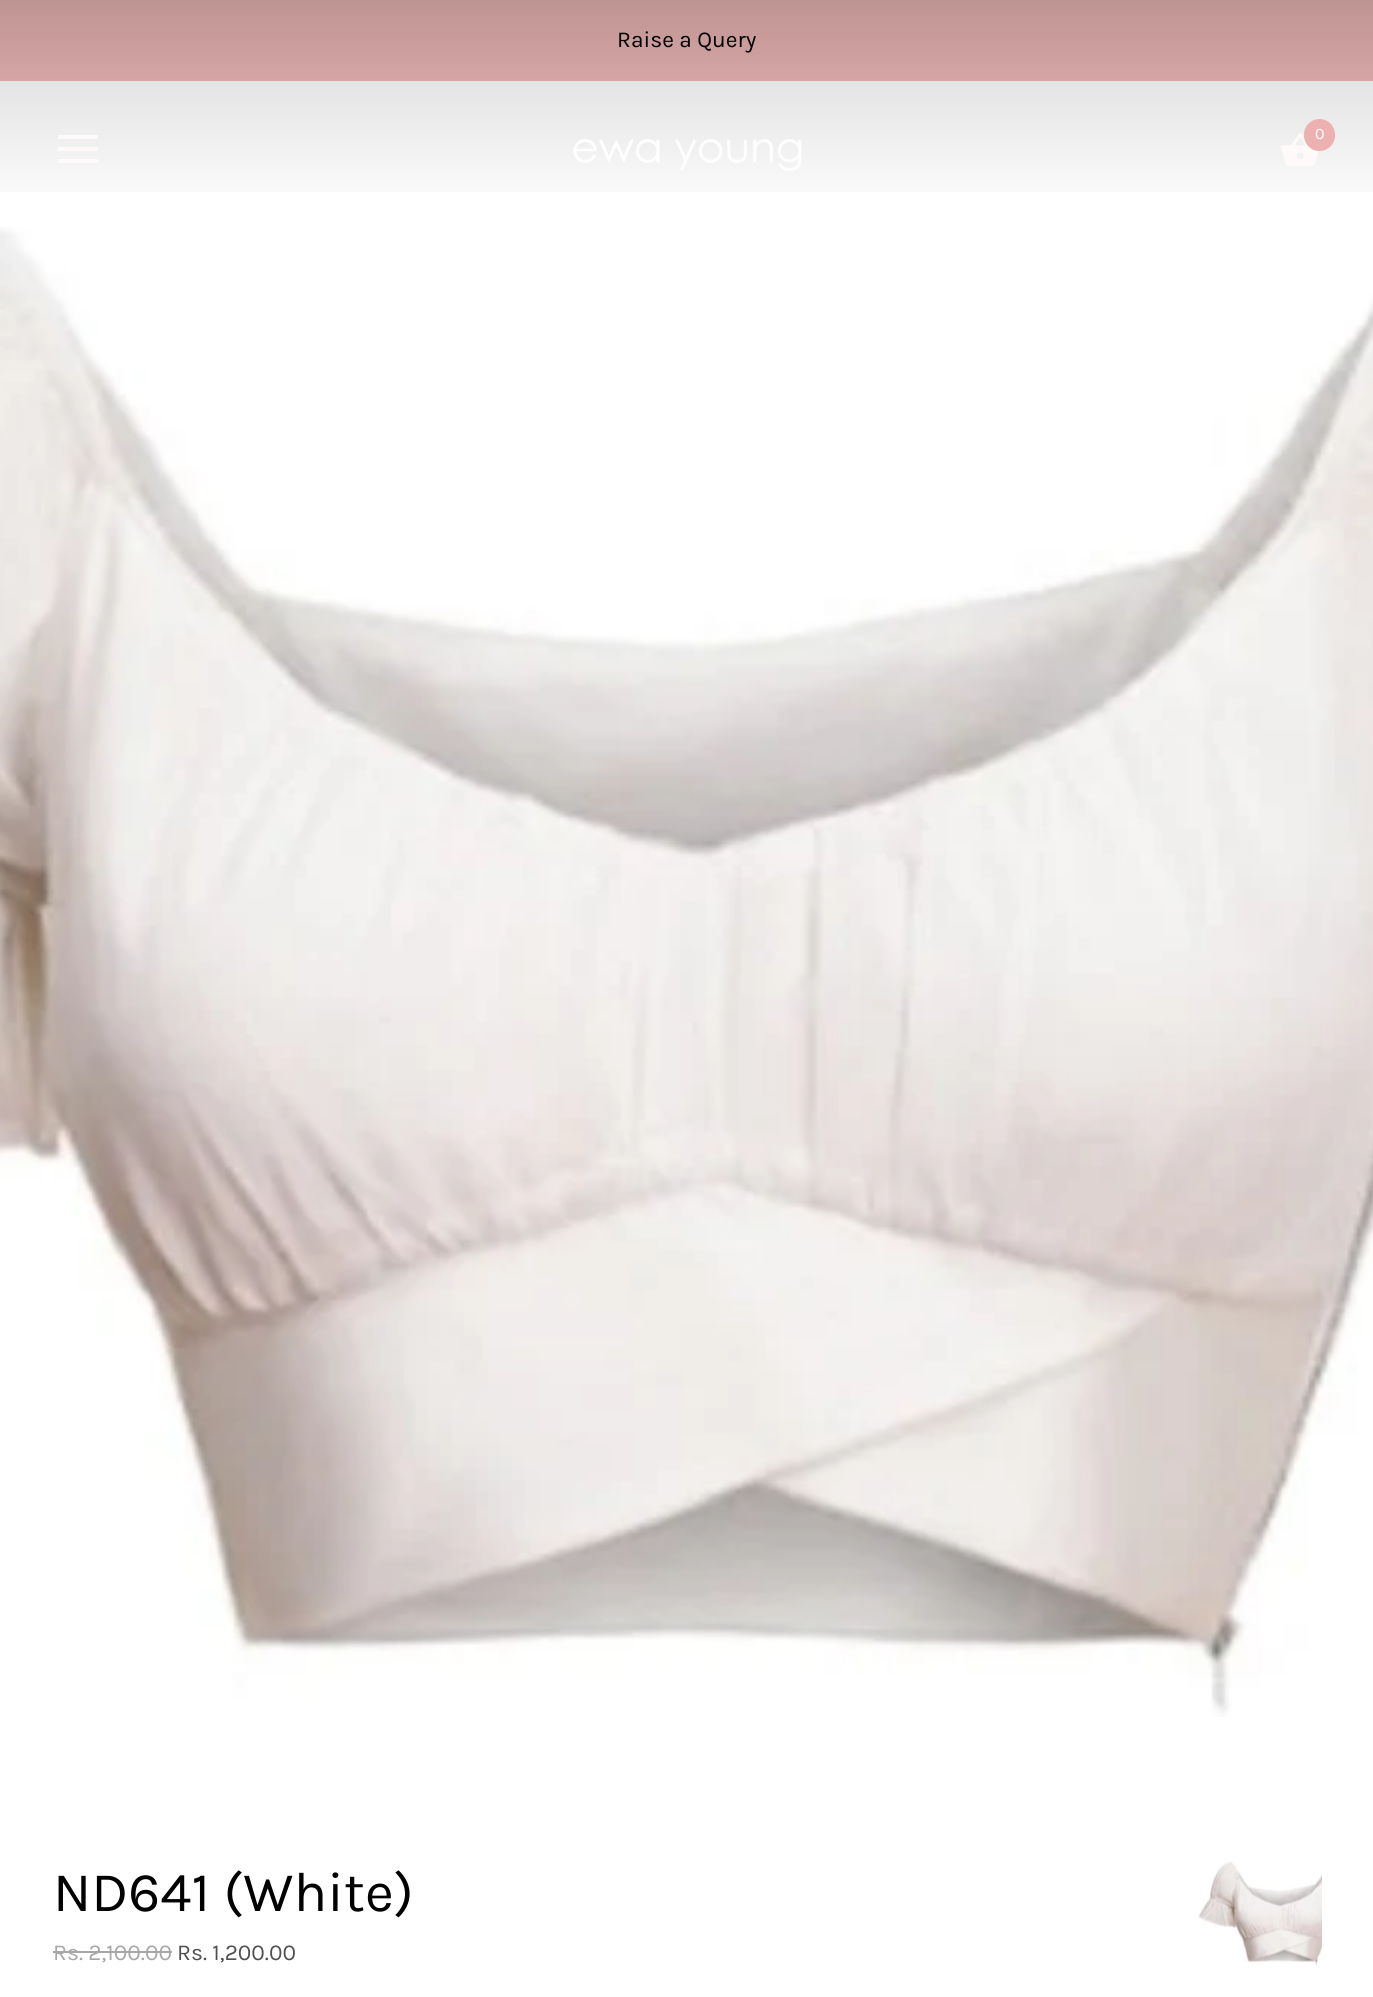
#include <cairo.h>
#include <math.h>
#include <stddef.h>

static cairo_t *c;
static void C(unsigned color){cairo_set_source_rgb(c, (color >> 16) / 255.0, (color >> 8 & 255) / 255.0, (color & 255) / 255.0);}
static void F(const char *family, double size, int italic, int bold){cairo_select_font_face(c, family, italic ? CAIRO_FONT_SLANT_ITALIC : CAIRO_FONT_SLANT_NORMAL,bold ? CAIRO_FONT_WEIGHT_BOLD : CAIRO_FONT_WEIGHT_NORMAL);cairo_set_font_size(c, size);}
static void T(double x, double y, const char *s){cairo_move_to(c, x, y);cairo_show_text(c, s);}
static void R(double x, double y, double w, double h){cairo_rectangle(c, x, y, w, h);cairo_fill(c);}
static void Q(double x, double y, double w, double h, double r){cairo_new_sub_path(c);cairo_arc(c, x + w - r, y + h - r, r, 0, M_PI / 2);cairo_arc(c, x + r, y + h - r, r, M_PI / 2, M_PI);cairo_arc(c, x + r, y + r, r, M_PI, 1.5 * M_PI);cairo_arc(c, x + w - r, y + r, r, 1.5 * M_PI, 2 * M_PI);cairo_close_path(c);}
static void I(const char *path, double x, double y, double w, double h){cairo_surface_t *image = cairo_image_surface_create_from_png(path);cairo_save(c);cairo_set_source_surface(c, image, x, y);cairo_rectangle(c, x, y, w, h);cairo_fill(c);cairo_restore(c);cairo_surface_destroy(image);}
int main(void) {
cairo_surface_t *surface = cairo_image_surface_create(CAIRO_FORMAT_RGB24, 1373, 1997);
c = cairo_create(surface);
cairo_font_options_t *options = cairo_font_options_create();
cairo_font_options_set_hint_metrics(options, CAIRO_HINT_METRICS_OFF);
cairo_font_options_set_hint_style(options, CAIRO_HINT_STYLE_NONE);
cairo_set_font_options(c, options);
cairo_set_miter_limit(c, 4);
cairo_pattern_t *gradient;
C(0xffffff);
cairo_paint(c);
C(0xeeb9b8);
R(0,0,1373,81);
gradient = cairo_pattern_create_linear(687,221,687,0);
cairo_pattern_add_color_stop_rgba(gradient,0,0,0,0,0);
cairo_pattern_add_color_stop_rgba(gradient,.6,0,0,0,.1);
cairo_pattern_add_color_stop_rgba(gradient,1,0,0,0,.2);
cairo_set_source(c,gradient);
cairo_pattern_destroy(gradient);
R(0,0,1373,192);
F("Karla",22.75,0,0);
C(0x000000);
T(617,47,"Raise a Query");
C(0xfffafa);
R(58,135,40,4);
R(58,147,40,4);
R(58,159,40,4);
I("1.png",573,139,229,32);
I("2.png",1281,133,38,33);
C(0xecb1b0);
Q(1304,119,31,32,15.5);
cairo_fill(c);
F("Karla",16,0,0);
C(0xffffff);
T(1315,139,"0");
I("3.png",0,227,1373,1490);
F("Karla",56,0,0);
C(0x000000);
T(53,1911,"ND641 (White)");
F("Karla",22.75,0,0);
C(0xa8a7a7);
T(53,1960,"Rs. 2,100.00");
R(53,1951,119,2);
C(0x514f4f);
T(177,1960,"Rs. 1,200.00");
I("4.png",1198,1861,124,105);
cairo_surface_write_to_png(surface, "o.png");
cairo_font_options_destroy(options);
cairo_destroy(c);
cairo_surface_destroy(surface);
return 0;
}
